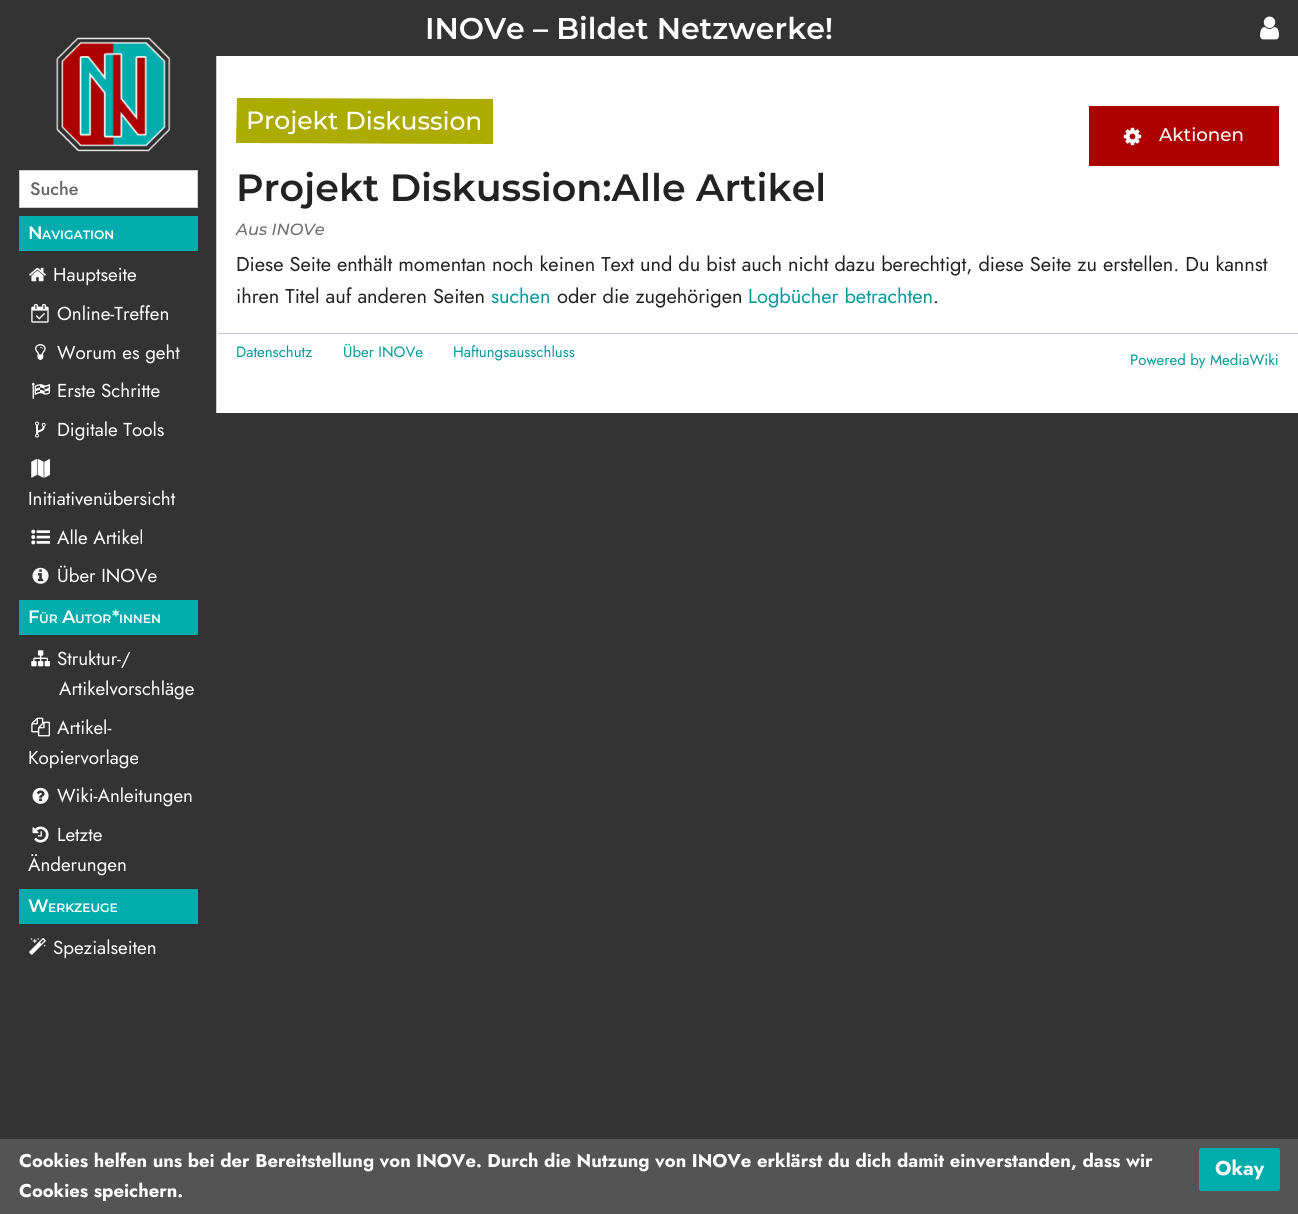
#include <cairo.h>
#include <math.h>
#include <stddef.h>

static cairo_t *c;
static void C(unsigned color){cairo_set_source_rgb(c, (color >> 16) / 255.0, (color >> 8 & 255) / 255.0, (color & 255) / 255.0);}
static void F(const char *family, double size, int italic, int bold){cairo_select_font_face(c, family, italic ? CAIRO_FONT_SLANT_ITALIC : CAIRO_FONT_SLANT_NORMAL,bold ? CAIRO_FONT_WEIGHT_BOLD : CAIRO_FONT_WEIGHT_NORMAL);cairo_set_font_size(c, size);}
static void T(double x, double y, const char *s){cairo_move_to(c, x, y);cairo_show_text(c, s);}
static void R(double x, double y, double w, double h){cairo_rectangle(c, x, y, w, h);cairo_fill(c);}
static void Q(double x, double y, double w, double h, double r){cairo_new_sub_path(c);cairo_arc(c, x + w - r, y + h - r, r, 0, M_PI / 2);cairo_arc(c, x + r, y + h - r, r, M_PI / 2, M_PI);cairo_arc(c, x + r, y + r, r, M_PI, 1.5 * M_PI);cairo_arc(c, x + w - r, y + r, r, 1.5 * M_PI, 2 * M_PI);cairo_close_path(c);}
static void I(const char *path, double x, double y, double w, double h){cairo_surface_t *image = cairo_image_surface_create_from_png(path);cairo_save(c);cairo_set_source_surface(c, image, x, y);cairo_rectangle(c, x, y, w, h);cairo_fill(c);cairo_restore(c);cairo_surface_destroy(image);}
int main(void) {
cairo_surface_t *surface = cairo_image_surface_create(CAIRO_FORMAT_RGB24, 1298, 1214);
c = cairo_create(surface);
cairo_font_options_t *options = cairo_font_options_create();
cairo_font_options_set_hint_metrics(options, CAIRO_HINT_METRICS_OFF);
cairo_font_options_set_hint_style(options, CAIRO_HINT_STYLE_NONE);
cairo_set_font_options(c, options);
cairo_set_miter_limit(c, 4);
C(0x333333);
cairo_paint(c);
F("Montserrat SemiBold",30,0,0);
C(0xffffff);
T(425,39,"INOVe – Bildet Netzwerke!");
I("1.png",1260,16,20,24);
R(217,56,1081,357);
C(0xcccccc);
R(216,56,1,357);
C(0xacac00);
cairo_new_path(c);
cairo_move_to(c,237,98);
cairo_line_to(c,493,99);
cairo_line_to(c,493,144);
cairo_line_to(c,236,143);
cairo_close_path(c);
cairo_fill(c);
F("Montserrat Medium",25,0,0);
C(0xffffff);
cairo_save(c);
cairo_translate(c,246,129);
cairo_rotate(c,0.2 * M_PI / 180);
T(0,0,"Projekt Diskussion");
cairo_restore(c);
C(0xac0000);
R(1089,106,190,60);
I("2.png",1123,127,19,19);
F("Montserrat Medium",18.25,0,0);
C(0xffffff);
T(1159,141,"Aktionen");
F("Montserrat SemiBold",38,0,0);
C(0x222222);
T(236,201,"Projekt Diskussion:Alle Artikel");
F("Montserrat Medium",16.25,1,0);
C(0x6f6f6f);
T(236,235,"Aus INOVe");
F("Jost",20,0,0);
C(0x222222);
T(236,271,"Diese Seite enthält momentan noch keinen Text und du bist auch nicht dazu berechtigt, diese Seite zu erstellen. Du kannst");
T(236,303,"ihren Titel auf anderen Seiten");
C(0x009999);
T(491,303,"suchen");
C(0x222222);
T(557,303,"oder die zugehörigen");
C(0x009999);
T(748,303,"Logbücher betrachten");
C(0x222222);
T(933,303,".");
C(0xc3c3e5);
R(218,333,1080,1);
F("Jost",15,0,0);
C(0x009999);
T(236,357,"Datenschutz");
T(343,357,"Über INOVe");
T(453,357,"Haftungsausschluss");
T(1130,365,"Powered by MediaWiki");
C(0x545454);
R(0,1139,1298,75);
F("Jost",18.4,0,1);
C(0xffffff);
T(19,1167,"Cookies helfen uns bei der Bereitstellung von INOVe. Durch die Nutzung von INOVe erklärst du dich damit einverstanden, dass wir");
T(19,1197,"Cookies speichern.");
C(0x00acac);
Q(1199.5,1148.5,80,42,2);
cairo_fill_preserve(c);
cairo_set_line_width(c,1);
cairo_stroke(c);
F("Jost",20,0,1);
C(0xffffff);
T(1215,1175,"Okay");
I("3.png",56,37,115,115);
cairo_rectangle(c,19.5,170.5,178,37);
cairo_fill_preserve(c);
C(0xcccccc);
cairo_stroke(c);
F("Jost Medium",18,0,0);
C(0x666666);
T(30,195,"Suche");
C(0x00acac);
R(19,216,179,35);
F("Montserrat SemiBold",18,0,0);
C(0xffffff);
T(28,239,"N");
F("Montserrat SemiBold",12.25,0,0);
T(42,239,"AVIGATION");
I("4.png",29,267,17,15);
F("Jost",18.75,0,0);
T(53,281,"Hauptseite");
I("5.png",31,303,18,20);
T(57,320,"Online-Treffen");
I("6.png",35,344,11,17);
T(57,359,"Worum es geht");
I("7.png",32,382,18,17);
T(57,397,"Erste Schritte");
I("8.png",35,421,11,17);
T(57,436,"Digitale Tools");
I("9.png",31,459,19,19);
T(28,505,"Initiativenübersicht");
I("10.png",31,529,19,16);
T(57,544,"Alle Artikel");
I("11.png",32,567,17,17);
T(57,582,"Über INOVe");
C(0x00acac);
R(19,600,179,35);
F("Montserrat SemiBold",18,0,0);
C(0xffffff);
T(28,623,"F");
F("Montserrat SemiBold",12.25,0,0);
T(39,623,"ÜR");
F("Montserrat SemiBold",18,0,0);
T(62,623,"A");
F("Montserrat SemiBold",12.25,0,0);
T(75,623,"UTOR");
F("Montserrat SemiBold",18,0,0);
T(112,623,"*");
F("Montserrat SemiBold",12.25,0,0);
T(119,623,"INNEN");
I("12.png",31,650,19,17);
F("Jost",18.75,0,0);
T(57,665,"Struktur-/");
T(59,695,"Artikelvorschläge");
I("13.png",31,717,19,20);
T(57,734,"Artikel-");
T(28,764,"Kopiervorlage");
I("14.png",32,787,17,17);
T(57,802,"Wiki-Anleitungen");
I("15.png",32,826,17,17);
T(57,841,"Letzte");
T(28,871,"Änderungen");
C(0x00acac);
R(19,889,179,35);
F("Montserrat SemiBold",18,0,0);
C(0xffffff);
T(28,912,"W");
F("Montserrat SemiBold",12.25,0,0);
T(48,912,"ERKZEUGE");
I("16.png",29,937,17,18);
F("Jost",18.75,0,0);
T(53,954,"Spezialseiten");
cairo_surface_write_to_png(surface, "o.png");
cairo_font_options_destroy(options);
cairo_destroy(c);
cairo_surface_destroy(surface);
return 0;
}
